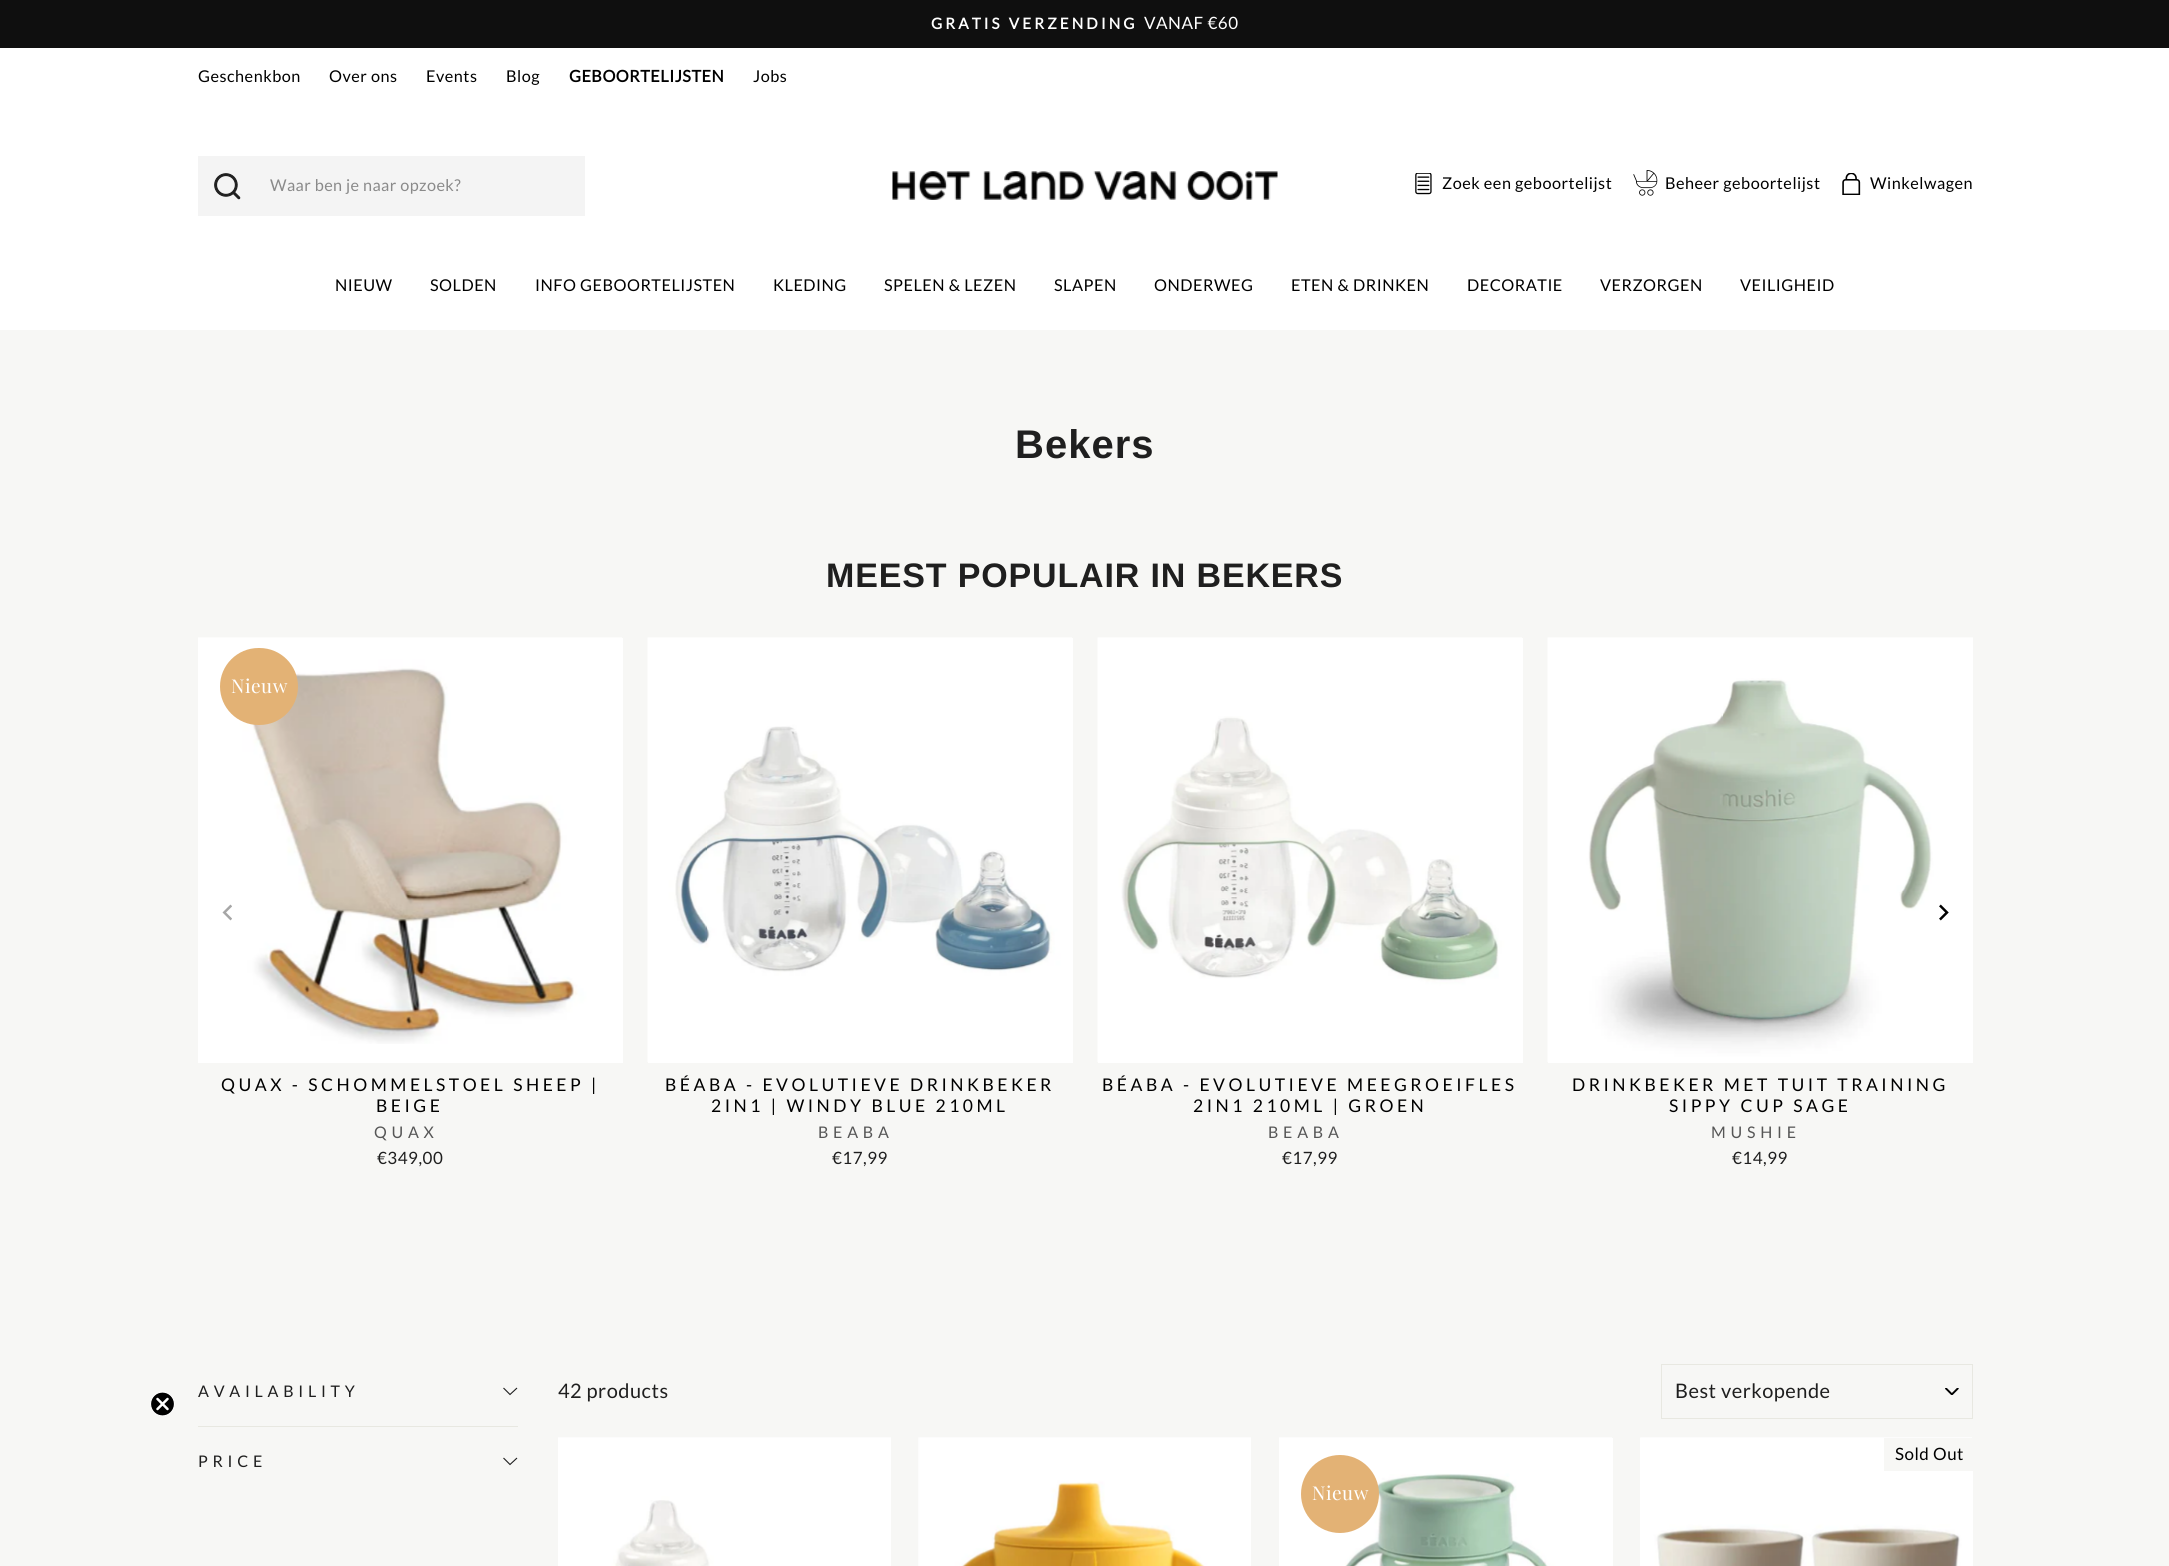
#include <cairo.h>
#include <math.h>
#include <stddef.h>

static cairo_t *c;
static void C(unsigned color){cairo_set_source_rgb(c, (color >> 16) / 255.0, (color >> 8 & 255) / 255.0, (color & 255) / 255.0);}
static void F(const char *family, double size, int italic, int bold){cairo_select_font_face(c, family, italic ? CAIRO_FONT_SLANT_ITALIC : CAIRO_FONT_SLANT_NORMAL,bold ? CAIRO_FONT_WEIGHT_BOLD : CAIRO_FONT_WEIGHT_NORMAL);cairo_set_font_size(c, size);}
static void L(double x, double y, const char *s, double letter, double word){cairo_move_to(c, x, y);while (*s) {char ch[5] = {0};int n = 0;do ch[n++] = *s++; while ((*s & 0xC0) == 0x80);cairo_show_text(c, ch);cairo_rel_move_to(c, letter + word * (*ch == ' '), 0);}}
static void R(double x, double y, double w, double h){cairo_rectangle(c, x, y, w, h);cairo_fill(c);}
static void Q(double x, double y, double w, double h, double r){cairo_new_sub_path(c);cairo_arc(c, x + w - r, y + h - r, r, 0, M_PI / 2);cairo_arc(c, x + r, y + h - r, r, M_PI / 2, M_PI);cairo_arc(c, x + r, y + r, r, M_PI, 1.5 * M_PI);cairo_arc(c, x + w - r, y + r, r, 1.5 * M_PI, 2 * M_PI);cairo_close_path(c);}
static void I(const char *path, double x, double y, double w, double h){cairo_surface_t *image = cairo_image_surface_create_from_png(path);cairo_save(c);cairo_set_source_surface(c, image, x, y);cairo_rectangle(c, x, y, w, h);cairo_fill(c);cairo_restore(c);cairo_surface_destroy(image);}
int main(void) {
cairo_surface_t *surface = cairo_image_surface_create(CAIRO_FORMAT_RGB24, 2169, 1566);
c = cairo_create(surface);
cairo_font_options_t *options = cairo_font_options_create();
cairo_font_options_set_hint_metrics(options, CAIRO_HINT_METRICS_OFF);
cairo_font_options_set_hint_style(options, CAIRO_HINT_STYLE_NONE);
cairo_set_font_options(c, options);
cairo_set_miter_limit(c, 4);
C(0xf7f7f5);
cairo_paint(c);
C(0x000000);
cairo_arc(c,162.5,1404,12,0,2 * M_PI);
cairo_fill(c);
cairo_save(c);
cairo_rectangle(c,150,1391,25,25);
cairo_clip(c);
cairo_arc(c,162.5,1404,12,0,2 * M_PI);
C(0xffffff);
cairo_set_line_width(c,1.2);
cairo_stroke(c);
cairo_restore(c);
cairo_new_path(c);
cairo_move_to(c,157.5,1399);
cairo_line_to(c,167.5,1409);
cairo_move_to(c,157.5,1409);
cairo_line_to(c,167.5,1399);
cairo_close_path(c);
C(0xffffff);
cairo_set_line_width(c,2.5);
cairo_set_line_cap(c,CAIRO_LINE_CAP_ROUND);
cairo_set_line_join(c,CAIRO_LINE_JOIN_ROUND);
cairo_stroke(c);
C(0x0f0f0f);
R(0,0,2169,48);
F("Lato",15.25,0,1);
C(0xffffff);
L(931,29,"GRATIS VERZENDING",3.1,0);
F("Lato",17,0,0);
L(1144,29,"VANAF €60",.5,0);
R(0,48,2169,282);
F("Lato",16.25,0,0);
C(0x000000);
L(198,82,"Geschenkbon",.5,0);
L(329,82,"Over ons",.5,0);
L(426,82,"Events",.5,0);
L(506,82,"Blog",.5,0);
F("Lato",16.25,0,1);
L(569,82,"GEBOORTELIJSTEN",.5,0);
F("Lato",16.25,0,0);
L(753,82,"Jobs",.5,0);
C(0xf4f4f4);
R(198,156,387,60);
I("1.png",214,173,27,27);
C(0x8a8a8a);
L(270,191,"Waar ben je naar opzoek?",.4,0);
I("2.png",892,171,386,29);
I("3.png",1415,173,17,22);
C(0x000000);
L(1442,189,"Zoek een geboortelijst",.5,0);
I("4.png",1633,170,25,26);
L(1665,189,"Beheer geboortelijst",.5,0);
I("5.png",1842,173,19,22);
L(1870,189,"Winkelwagen",.5,0);
L(335,291,"NIEUW",.5,0);
L(430,291,"SOLDEN",.5,0);
L(535,291,"INFO GEBOORTELIJSTEN",.5,0);
L(773,291,"KLEDING",.5,0);
L(884,291,"SPELEN & LEZEN",.5,0);
L(1054,291,"SLAPEN",.5,0);
L(1154,291,"ONDERWEG",.5,0);
L(1291,291,"ETEN & DRINKEN",.5,0);
L(1467,291,"DECORATIE",.5,0);
L(1600,291,"VERZORGEN",.5,0);
L(1740,291,"VEILIGHEID",.5,0);
F("Liberation Sans",40,0,1);
C(0x1f1f1f);
L(1015,458,"Bekers",1,0);
F("Liberation Sans",34,0,1);
L(826,587,"MEEST POPULAIR IN BEKERS",.85,0);
C(0xffffff);
R(198,638,425,425);
I("6.png",198,637,424,407);
C(0xe3b275);
Q(220,648,78,77,38.5);
cairo_fill(c);
F("Playfair Display",19,0,0);
C(0xffffff);
L(231,693,"Nieuw",.5,0);
F("Lato",17.5,0,0);
C(0x000000);
L(221,1091,"QUAX - SCHOMMELSTOEL SHEEP |",3.5,0);
L(376,1112,"BEIGE",3.5,0);
F("Lato",16,0,0);
C(0x565656);
L(374,1138,"QUAX",4.75,0);
F("Lato",17,0,0);
C(0x1f1f1f);
L(377,1164,"€349,00",.5,0);
C(0xffffff);
R(648,638,425,425);
I("7.png",647,637,425,425);
F("Lato",17.5,0,0);
C(0x000000);
L(665,1091,"BÉABA - EVOLUTIEVE DRINKBEKER",3.5,0);
L(711,1112,"2IN1 | WINDY BLUE 210ML",3.5,0);
F("Lato",16,0,0);
C(0x565656);
L(818,1138,"BEABA",4.75,0);
F("Lato",17,0,0);
C(0x1f1f1f);
L(832,1164,"€17,99",.5,0);
C(0xffffff);
R(1098,638,425,425);
I("8.png",1097,637,425,425);
F("Lato",17.5,0,0);
C(0x000000);
L(1102,1091,"BÉABA - EVOLUTIEVE MEEGROEIFLES",3.5,0);
L(1193,1112,"2IN1 210ML | GROEN",3.5,0);
F("Lato",16,0,0);
C(0x565656);
L(1268,1138,"BEABA",4.75,0);
F("Lato",17,0,0);
C(0x1f1f1f);
L(1282,1164,"€17,99",.5,0);
C(0xffffff);
R(1548,638,425,425);
I("9.png",1547,637,426,425);
F("Lato",17.5,0,0);
C(0x000000);
L(1572,1091,"DRINKBEKER MET TUIT TRAINING",3.5,0);
L(1669,1112,"SIPPY CUP SAGE",3.5,0);
F("Lato",16,0,0);
C(0x565656);
L(1711,1138,"MUSHIE",4.75,0);
F("Lato",17,0,0);
C(0x1f1f1f);
L(1732,1164,"€14,99",.5,0);
I("10.png",222,904,10,17);
I("11.png",1939,904,10,17);
F("Lato",16,0,0);
L(198,1397,"AVAILABILITY",4.75,0);
cairo_new_path(c);
cairo_move_to(c,503.5,1388);
cairo_line_to(c,510,1394.5);
cairo_line_to(c,517,1388);
cairo_set_line_width(c,1.1);
cairo_set_line_cap(c,CAIRO_LINE_CAP_BUTT);
cairo_set_line_join(c,CAIRO_LINE_JOIN_MITER);
cairo_stroke(c);
C(0xe8e8e1);
R(198,1426,320,1);
C(0x1f1f1f);
L(198,1467,"PRICE",4.75,0);
cairo_new_path(c);
cairo_move_to(c,503.5,1458);
cairo_line_to(c,510,1464.5);
cairo_line_to(c,517,1458);
cairo_stroke(c);
F("Lato",20,0,0);
L(558,1398,"42 products",.5,0);
I("12.png",1945,1388,14,7);
cairo_rectangle(c,1661.5,1364.5,311,54);
C(0xe8e8e1);
cairo_set_line_width(c,1);
cairo_stroke(c);
C(0x1f1f1f);
L(1675,1398,"Best verkopende",.5,0);
I("13.png",558,1437,333,129);
I("14.png",918,1437,333,129);
C(0xffffff);
R(1640,1438,333,128);
I("15.png",1640,1437,332,129);
C(0xf7f7f5);
R(1884,1438,89,33);
F("Lato",17,0,0);
C(0x000000);
L(1895,1460,"Sold Out",.5,0);
C(0xffffff);
R(1279,1438,334,128);
I("16.png",1279,1437,333,129);
C(0xe3b275);
cairo_arc(c,1340,1494,39,0,2 * M_PI);
cairo_fill(c);
F("Playfair Display",19,0,0);
C(0xffffff);
L(1312,1500,"Nieuw",.5,0);
cairo_surface_write_to_png(surface, "o.png");
cairo_font_options_destroy(options);
cairo_destroy(c);
cairo_surface_destroy(surface);
return 0;
}
